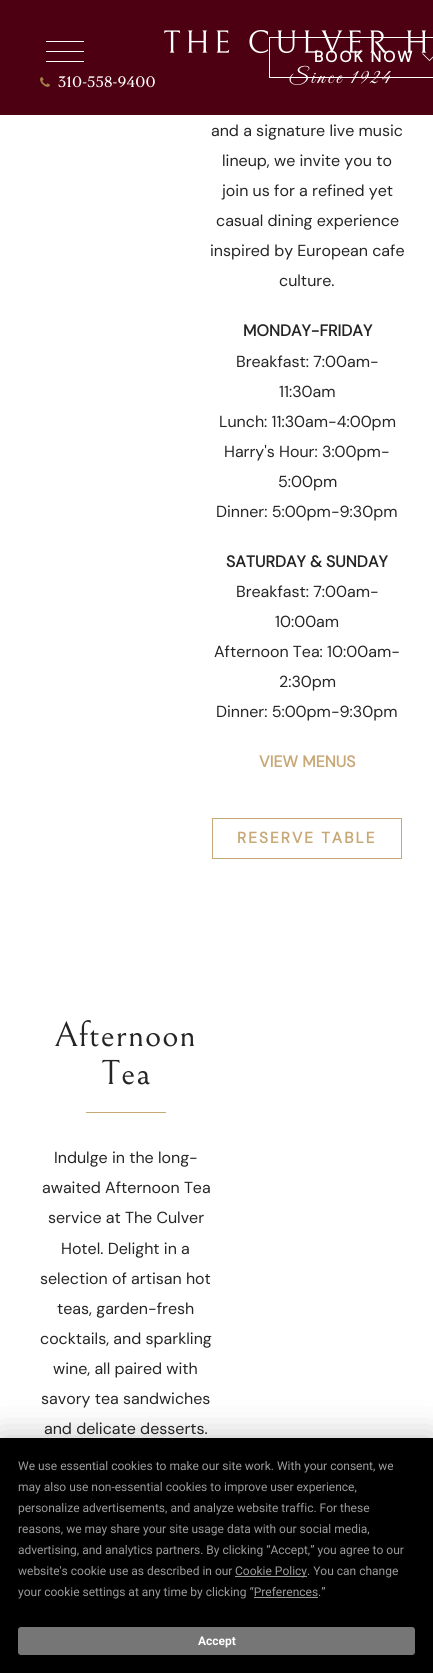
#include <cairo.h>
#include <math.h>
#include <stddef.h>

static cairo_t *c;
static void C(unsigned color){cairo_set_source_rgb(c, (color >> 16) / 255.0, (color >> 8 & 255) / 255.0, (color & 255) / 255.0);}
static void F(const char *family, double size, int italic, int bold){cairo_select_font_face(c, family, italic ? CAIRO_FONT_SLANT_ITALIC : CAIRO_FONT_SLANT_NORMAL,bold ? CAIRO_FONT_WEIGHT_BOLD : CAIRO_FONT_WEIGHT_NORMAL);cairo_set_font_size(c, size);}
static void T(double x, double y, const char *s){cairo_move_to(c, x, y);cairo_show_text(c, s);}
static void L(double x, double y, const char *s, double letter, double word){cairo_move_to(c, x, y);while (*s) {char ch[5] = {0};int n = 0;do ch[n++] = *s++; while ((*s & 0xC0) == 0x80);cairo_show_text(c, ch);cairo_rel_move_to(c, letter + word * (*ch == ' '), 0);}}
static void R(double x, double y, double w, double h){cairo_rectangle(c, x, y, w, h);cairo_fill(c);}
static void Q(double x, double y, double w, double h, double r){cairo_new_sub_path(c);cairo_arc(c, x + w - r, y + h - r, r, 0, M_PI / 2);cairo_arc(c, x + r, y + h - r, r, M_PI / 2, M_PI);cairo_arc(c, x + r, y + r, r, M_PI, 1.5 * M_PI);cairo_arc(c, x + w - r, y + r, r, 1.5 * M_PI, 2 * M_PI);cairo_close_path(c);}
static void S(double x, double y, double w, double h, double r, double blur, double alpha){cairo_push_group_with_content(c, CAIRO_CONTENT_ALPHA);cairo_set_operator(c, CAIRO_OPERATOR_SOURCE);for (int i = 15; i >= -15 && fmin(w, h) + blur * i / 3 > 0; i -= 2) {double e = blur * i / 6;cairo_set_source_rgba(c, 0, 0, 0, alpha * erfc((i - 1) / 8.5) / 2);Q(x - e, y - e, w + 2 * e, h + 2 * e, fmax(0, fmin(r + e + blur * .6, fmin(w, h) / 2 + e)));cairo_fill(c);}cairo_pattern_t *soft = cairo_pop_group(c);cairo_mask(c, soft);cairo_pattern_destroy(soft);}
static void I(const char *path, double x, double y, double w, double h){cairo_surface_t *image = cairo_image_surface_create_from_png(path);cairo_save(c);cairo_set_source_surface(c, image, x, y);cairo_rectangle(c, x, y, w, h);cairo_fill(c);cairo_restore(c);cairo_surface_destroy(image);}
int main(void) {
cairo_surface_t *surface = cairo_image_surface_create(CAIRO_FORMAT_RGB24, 433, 1673);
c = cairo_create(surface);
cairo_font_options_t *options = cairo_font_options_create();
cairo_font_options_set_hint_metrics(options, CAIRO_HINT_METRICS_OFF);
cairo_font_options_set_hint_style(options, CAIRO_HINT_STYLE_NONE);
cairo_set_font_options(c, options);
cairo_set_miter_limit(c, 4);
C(0xffffff);
cairo_paint(c);
C(0x4d0011);
R(0,0,433,115);
I("1.png",164,30,263,55);
cairo_rectangle(c,269.5,37.5,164,40);
C(0xffffff);
cairo_set_line_width(c,1);
cairo_stroke(c);
F("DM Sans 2",15.5,0,1);
L(314,62,"BOOK NOW",2,0);
cairo_new_path(c);
cairo_move_to(c,422.5,53.5);
cairo_line_to(c,429.5,60.5);
cairo_line_to(c,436.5,53.5);
cairo_set_line_width(c,.8);
cairo_stroke(c);
R(46,41,38,1);
R(46,51,38,1);
R(46,61,38,1);
I("2.png",40,77,10,10);
F("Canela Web",14,0,1);
L(58,87,"310-558-9400",1,0);
F("DM Sans",16,0,0);
C(0x252525);
T(211,136,"and a signature live music");
T(222,166,"lineup, we invite you to");
T(222,196,"join us for a refined yet");
T(216,226,"casual dining experience");
T(210,256,"inspired by European cafe");
T(279,286,"culture.");
F("DM Sans",16,0,1);
T(243,336,"MONDAY-FRIDAY");
F("DM Sans",16,0,0);
T(236,367,"Breakfast: 7:00am-");
T(279,397,"11:30am");
T(219,427,"Lunch: 11:30am-4:00pm");
T(224,457,"Harry's Hour: 3:00pm-");
T(278,487,"5:00pm");
T(216,517,"Dinner: 5:00pm-9:30pm");
F("DM Sans",16,0,1);
T(226,567,"SATURDAY & SUNDAY");
F("DM Sans",16,0,0);
T(236,597,"Breakfast: 7:00am-");
T(275,627,"10:00am");
T(214,657,"Afternoon Tea: 10:00am-");
T(279,687,"2:30pm");
T(216,717,"Dinner: 5:00pm-9:30pm");
F("DM Sans",16,0,1);
C(0xc8a877);
T(259,767,"VIEW MENUS");
cairo_rectangle(c,212.5,818.5,189,40);
cairo_set_line_width(c,1);
cairo_stroke(c);
F("DM Sans 2",15.5,0,1);
L(237,843,"RESERVE TABLE",2,0);
F("Bellefair",35,0,0);
C(0x252525);
L(54,1046,"Afternoon",1,0);
L(101,1084,"Tea",1,0);
C(0xc8a877);
R(86,1112,80,1);
F("DM Sans",16,0,0);
C(0x252525);
T(54,1163,"Indulge in the long-");
T(42,1193,"awaited Afternoon Tea");
T(48,1223,"service at The Culver");
T(61,1254,"Hotel. Delight in a");
T(40,1284,"selection of artisan hot");
T(57,1314,"teas, garden-fresh");
T(40,1344,"cocktails, and sparkling");
T(53,1374,"wine, all paired with");
T(41,1404,"savory tea sandwiches");
T(44,1434,"and delicate desserts.");
C(0x000000);
S(0,1438,433,235,0,17.5,.25);
C(0x000000);
R(0,1438,433,235);
F("Roboto",12,0,0);
C(0x9b9b9b);
T(18,1470,"We use essential cookies to make our site work. With your consent, we");
T(18,1491,"may also use non-essential cookies to improve user experience,");
T(18,1512,"personalize advertisements, and analyze website traffic. For these");
T(18,1533,"reasons, we may share your site usage data with our social media,");
T(18,1554,"advertising, and analytics partners. By clicking “Accept,” you agree to our");
T(18,1575,"website's cookie use as described in our");
R(235,1576,72,1);
T(235,1575,"Cookie Policy");
T(307,1575,". You can change");
T(18,1596,"your cookie settings at any time by clicking “Preferences");
T(318,1596,".”");
R(254,1597,64,1);
C(0x767676);
Q(18.5,1627.5,396,27,2.5);
cairo_fill_preserve(c);
cairo_stroke(c);
F("Roboto",12,0,1);
C(0xffffff);
T(198,1645,"Accept");
cairo_surface_write_to_png(surface, "o.png");
cairo_font_options_destroy(options);
cairo_destroy(c);
cairo_surface_destroy(surface);
return 0;
}
